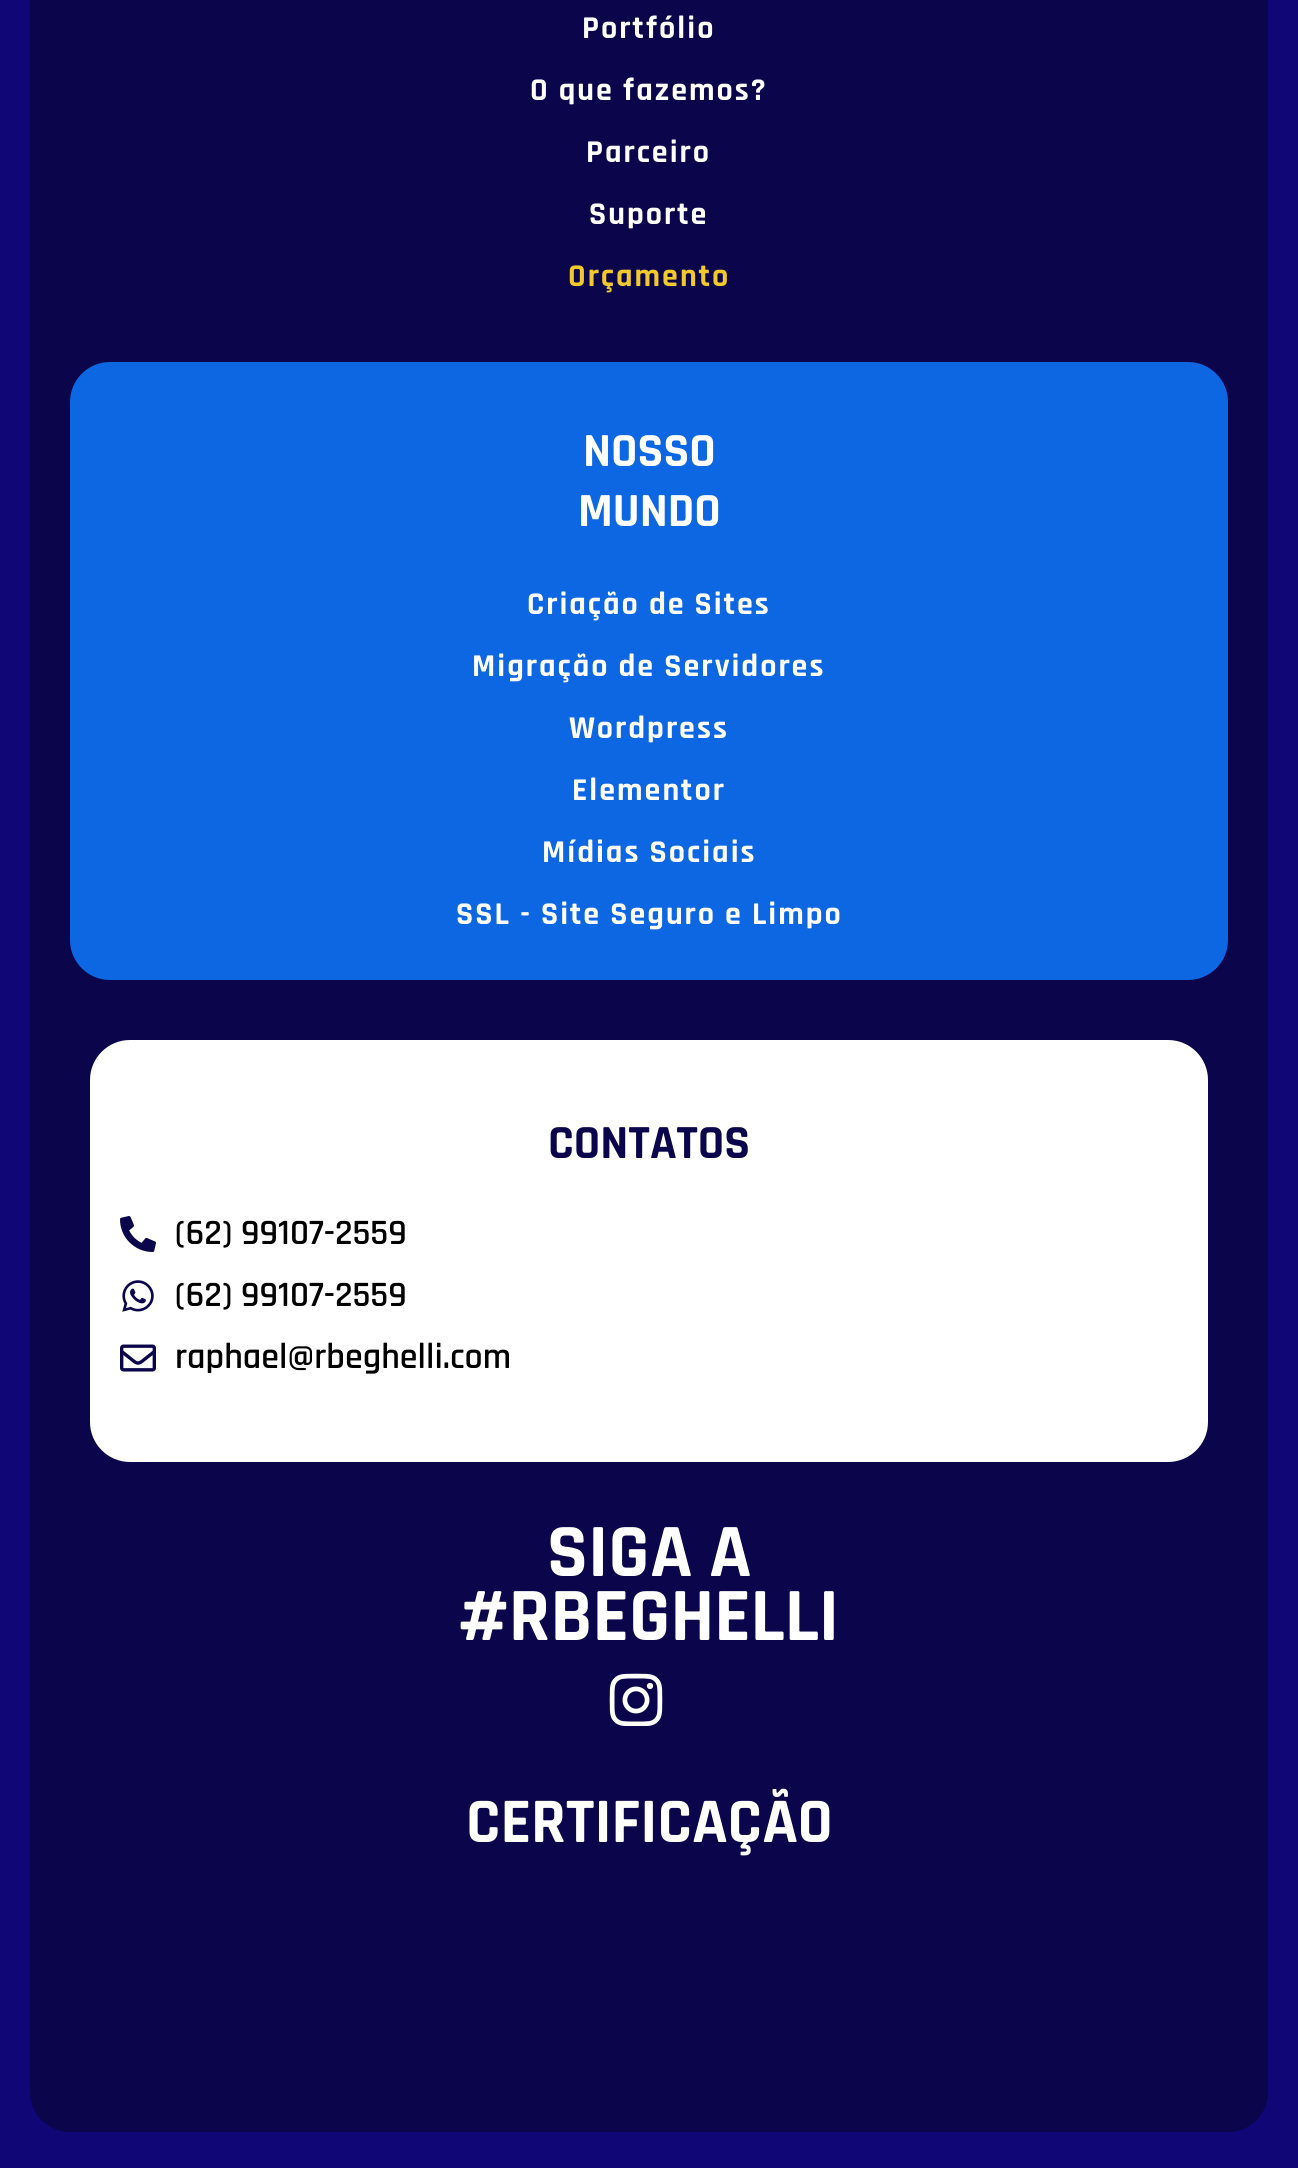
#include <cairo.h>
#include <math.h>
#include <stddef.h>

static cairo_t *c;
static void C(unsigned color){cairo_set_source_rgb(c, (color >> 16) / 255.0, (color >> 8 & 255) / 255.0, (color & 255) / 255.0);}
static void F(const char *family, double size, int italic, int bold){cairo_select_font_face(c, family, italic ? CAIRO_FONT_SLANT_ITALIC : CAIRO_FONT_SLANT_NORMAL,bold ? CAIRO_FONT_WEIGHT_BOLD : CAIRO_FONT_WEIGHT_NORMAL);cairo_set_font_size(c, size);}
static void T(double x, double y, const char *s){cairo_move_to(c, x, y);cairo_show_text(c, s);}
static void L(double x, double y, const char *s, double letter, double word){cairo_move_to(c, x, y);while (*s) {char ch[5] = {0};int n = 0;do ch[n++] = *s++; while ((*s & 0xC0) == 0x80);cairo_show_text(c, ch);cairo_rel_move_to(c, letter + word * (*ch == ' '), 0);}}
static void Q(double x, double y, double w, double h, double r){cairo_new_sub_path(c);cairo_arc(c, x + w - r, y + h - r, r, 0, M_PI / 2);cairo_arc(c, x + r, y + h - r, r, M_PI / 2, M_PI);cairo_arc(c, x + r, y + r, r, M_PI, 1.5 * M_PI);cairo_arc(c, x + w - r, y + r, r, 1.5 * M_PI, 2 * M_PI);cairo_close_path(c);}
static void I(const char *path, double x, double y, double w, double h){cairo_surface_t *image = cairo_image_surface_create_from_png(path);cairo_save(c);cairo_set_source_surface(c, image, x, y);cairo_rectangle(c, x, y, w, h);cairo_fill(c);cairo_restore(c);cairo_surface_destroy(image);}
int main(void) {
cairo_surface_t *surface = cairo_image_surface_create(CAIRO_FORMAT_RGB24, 1298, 2168);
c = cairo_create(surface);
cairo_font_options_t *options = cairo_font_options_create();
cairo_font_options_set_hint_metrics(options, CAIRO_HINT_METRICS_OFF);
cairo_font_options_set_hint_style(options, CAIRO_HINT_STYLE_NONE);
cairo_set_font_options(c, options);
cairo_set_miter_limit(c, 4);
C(0x100675);
cairo_paint(c);
C(0x0b054b);
Q(30,-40,1238,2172,40);
cairo_fill(c);
F("Rajdhani",32,0,1);
C(0xffffff);
L(582,38,"Portfólio",2,0);
L(530,100,"O que fazemos?",2,0);
L(586,162,"Parceiro",2,0);
L(589,224,"Suporte",2,0);
C(0xf2c92c);
L(568,286,"Orçamento",2,0);
C(0x0e67e2);
Q(70,362,1158,618,40);
cairo_fill(c);
F("Rajdhani",48,0,1);
C(0xffffff);
T(583,466,"NOSSO");
T(578,526,"MUNDO");
F("Rajdhani",32,0,1);
L(527,614,"Criação de Sites",2,0);
L(472,676,"Migração de Servidores",2,0);
L(569,738,"Wordpress",2,0);
L(572,800,"Elementor",2,0);
L(542,862,"Mídias Sociais",2,0);
L(456,924,"SSL - Site Seguro e Limpo",2,0);
Q(90,1040,1118,422,40);
cairo_fill(c);
F("Rajdhani",48,0,1);
C(0x0b054b);
T(548,1158,"CONTATOS");
I("1.png",120,1216,36,36);
F("Rajdhani SemiBold",36,0,0);
C(0x000000);
T(175,1244,"(62) 99107-2559");
I("2.png",122,1280,32,32);
T(175,1306,"(62) 99107-2559");
I("3.png",120,1344,36,28);
T(175,1368,"raphael@rbeghelli.com");
F("Rajdhani",76,0,1);
C(0xffffff);
T(547,1576,"SIGA A");
T(458,1640,"#RBEGHELLI");
I("4.png",609,1673,54,53);
F("Rajdhani",64,0,1);
T(466,1842,"CERTIFICAÇÃO");
cairo_surface_write_to_png(surface, "o.png");
cairo_font_options_destroy(options);
cairo_destroy(c);
cairo_surface_destroy(surface);
return 0;
}
